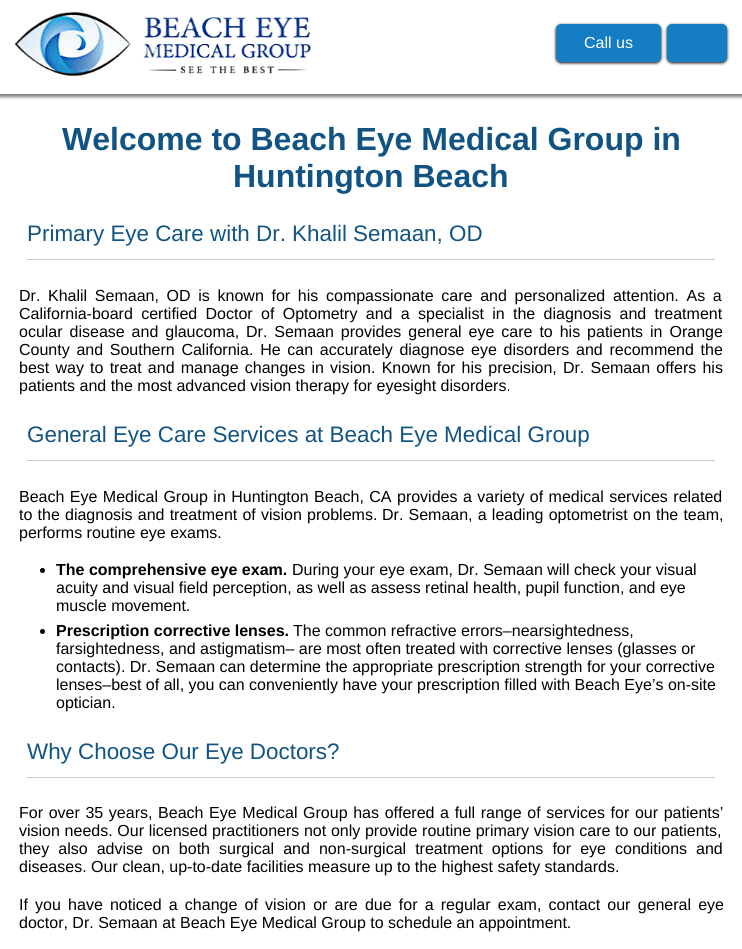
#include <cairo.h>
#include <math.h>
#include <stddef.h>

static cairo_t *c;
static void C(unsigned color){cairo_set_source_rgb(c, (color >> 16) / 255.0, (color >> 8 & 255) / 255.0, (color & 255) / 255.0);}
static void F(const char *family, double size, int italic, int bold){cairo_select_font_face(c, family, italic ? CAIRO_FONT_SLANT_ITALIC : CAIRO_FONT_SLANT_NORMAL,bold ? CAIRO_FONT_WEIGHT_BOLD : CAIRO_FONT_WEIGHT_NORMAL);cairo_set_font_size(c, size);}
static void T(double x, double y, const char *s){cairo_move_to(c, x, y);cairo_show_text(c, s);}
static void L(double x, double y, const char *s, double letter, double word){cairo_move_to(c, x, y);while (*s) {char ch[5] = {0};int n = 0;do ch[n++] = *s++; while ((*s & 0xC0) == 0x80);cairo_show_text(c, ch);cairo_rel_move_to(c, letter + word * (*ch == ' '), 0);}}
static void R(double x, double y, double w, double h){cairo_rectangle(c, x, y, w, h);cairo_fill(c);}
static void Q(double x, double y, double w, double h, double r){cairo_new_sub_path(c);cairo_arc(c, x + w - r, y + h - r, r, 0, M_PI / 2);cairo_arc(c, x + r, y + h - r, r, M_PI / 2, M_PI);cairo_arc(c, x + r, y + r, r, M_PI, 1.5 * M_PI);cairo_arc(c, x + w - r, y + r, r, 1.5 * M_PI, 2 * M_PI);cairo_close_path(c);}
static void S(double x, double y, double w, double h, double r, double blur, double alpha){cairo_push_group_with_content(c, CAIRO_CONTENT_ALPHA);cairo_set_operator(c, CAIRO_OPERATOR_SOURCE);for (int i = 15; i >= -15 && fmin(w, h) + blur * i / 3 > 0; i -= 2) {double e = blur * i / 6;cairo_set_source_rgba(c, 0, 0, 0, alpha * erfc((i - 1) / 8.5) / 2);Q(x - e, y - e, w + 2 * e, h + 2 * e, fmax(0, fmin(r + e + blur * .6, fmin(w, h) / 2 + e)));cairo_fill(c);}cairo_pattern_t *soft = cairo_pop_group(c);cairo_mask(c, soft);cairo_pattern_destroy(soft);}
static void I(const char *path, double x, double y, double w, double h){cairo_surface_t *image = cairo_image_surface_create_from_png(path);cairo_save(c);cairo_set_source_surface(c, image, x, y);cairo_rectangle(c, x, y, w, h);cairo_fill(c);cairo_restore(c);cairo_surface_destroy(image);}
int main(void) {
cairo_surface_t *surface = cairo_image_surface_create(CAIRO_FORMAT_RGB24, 742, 949);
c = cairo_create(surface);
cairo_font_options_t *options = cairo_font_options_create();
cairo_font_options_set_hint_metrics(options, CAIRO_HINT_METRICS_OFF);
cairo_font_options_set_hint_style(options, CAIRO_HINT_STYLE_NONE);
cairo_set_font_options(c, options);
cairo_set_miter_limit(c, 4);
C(0xffffff);
cairo_paint(c);
cairo_save(c);
cairo_rectangle(c,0,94,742,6);
cairo_clip(c);
C(0x000000);
S(-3,-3,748,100,0,1.5,.5);
cairo_restore(c);
I("1.png",14,12,297,65);
C(0x000000);
S(556,25,105,38,5,1.5,1);
C(0x157dc3);
Q(556,24,105,38,5);
cairo_fill(c);
F("Liberation Sans",16,0,0);
C(0xffffff);
T(584,48,"Call us");
C(0x000000);
S(667,25,60,38,5,1.5,1);
C(0x157dc3);
Q(667,24,60,38,5);
cairo_fill(c);
F("Liberation Sans",32,0,1);
C(0x115483);
T(62,150,"Welcome to Beach Eye Medical Group in");
T(233,187,"Huntington Beach");
C(0xcccccc);
R(27,259,688,1);
F("Liberation Sans",22.4,0,0);
C(0x115483);
T(27,241,"Primary Eye Care with Dr. Khalil Semaan, OD");
F("Liberation Sans",16,0,0);
C(0x000000);
L(19,301,"Dr. Khalil Semaan, OD is known for his compassionate care and personalized attention. As a",0,3.25);
L(19,319,"California-board certified Doctor of Optometry and a specialist in the diagnosis and treatment",0,3.9);
L(19,337,"ocular disease and glaucoma, Dr. Semaan provides general eye care to his patients in Orange",0,2.5);
L(19,355,"County and Southern California. He can accurately diagnose eye disorders and recommend the",0,2.25);
L(19,373,"best way to treat and manage changes in vision. Known for his precision, Dr. Semaan offers his",0,1.75);
T(19,391,"patients and the most advanced vision therapy for eyesight disorders.");
C(0xcccccc);
R(27,460,688,1);
F("Liberation Sans",22.4,0,0);
C(0x115483);
T(27,442,"General Eye Care Services at Beach Eye Medical Group");
F("Liberation Sans",16,0,0);
C(0x000000);
L(19,502,"Beach Eye Medical Group in Huntington Beach, CA provides a variety of medical services related",0,1);
L(19,520,"to the diagnosis and treatment of vision problems.",0,.75);
L(382,520,"Dr. Semaan, a leading optometrist on the team,",0,.75);
T(19,538,"performs routine eye exams.");
cairo_new_path(c);
cairo_arc(c,42.5,570.5,2.5,0,2 * M_PI);
cairo_fill(c);
F("Liberation Sans",16,0,1);
T(56,575,"The comprehensive eye exam.");
F("Liberation Sans",16,0,0);
T(292,575,"During your eye exam, Dr. Semaan will check your visual");
T(56,593,"acuity and visual field perception, as well as assess retinal health, pupil function, and eye");
T(56,611,"muscle movement.");
cairo_new_path(c);
cairo_arc(c,42.5,631.5,2.5,0,2 * M_PI);
cairo_fill(c);
F("Liberation Sans",16,0,1);
T(56,636,"Prescription corrective lenses.");
F("Liberation Sans",16,0,0);
T(293,636,"The common refractive errors–nearsightedness,");
T(56,654,"farsightedness, and astigmatism– are most often treated with corrective lenses (glasses or");
T(56,672,"contacts). Dr. Semaan can determine the appropriate prescription strength for your corrective");
T(56,690,"lenses–best of all, you can conveniently have your prescription filled with Beach Eye’s on-site");
T(56,708,"optician.");
C(0xcccccc);
R(27,777,688,1);
F("Liberation Sans",22.4,0,0);
C(0x115483);
T(27,759,"Why Choose Our Eye Doctors?");
F("Liberation Sans",16,0,0);
C(0x000000);
L(19,818,"For over 35 years, Beach Eye Medical Group has offered a full range of services for our patients’",0,1.2);
L(19,836,"vision needs. Our licensed practitioners not only provide routine primary vision care to our patients,",0,.25);
L(19,854,"they also advise on both surgical and non-surgical treatment options for eye conditions and",0,4.6);
T(19,872,"diseases. Our clean, up-to-date facilities measure up to the highest safety standards.");
L(19,910,"If you have noticed a change of vision or are due for a regular exam, contact our general eye",0,2.75);
T(19,928,"doctor, Dr. Semaan at Beach Eye Medical Group to schedule an appointment.");
cairo_surface_write_to_png(surface, "o.png");
cairo_font_options_destroy(options);
cairo_destroy(c);
cairo_surface_destroy(surface);
return 0;
}
